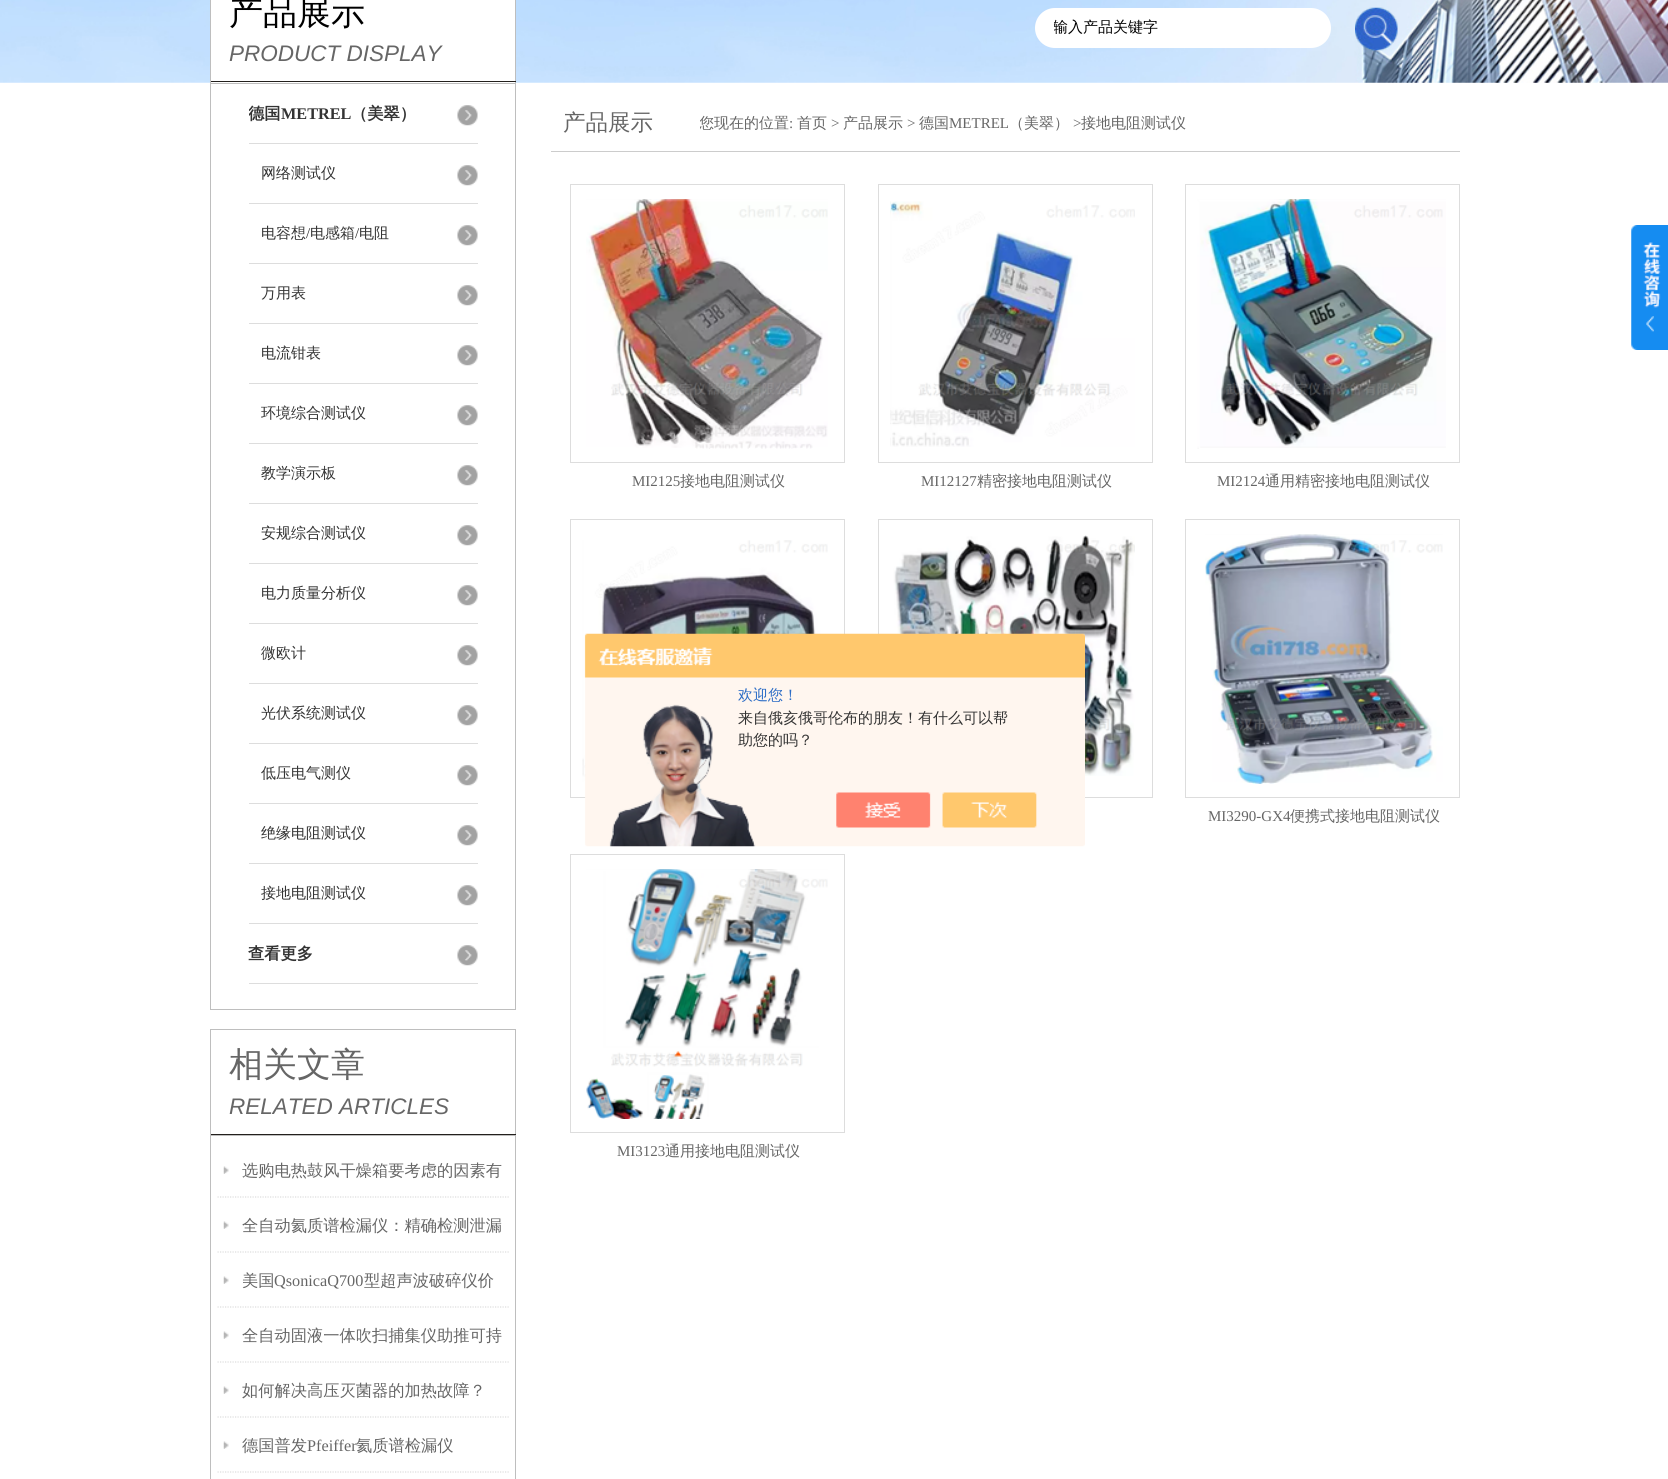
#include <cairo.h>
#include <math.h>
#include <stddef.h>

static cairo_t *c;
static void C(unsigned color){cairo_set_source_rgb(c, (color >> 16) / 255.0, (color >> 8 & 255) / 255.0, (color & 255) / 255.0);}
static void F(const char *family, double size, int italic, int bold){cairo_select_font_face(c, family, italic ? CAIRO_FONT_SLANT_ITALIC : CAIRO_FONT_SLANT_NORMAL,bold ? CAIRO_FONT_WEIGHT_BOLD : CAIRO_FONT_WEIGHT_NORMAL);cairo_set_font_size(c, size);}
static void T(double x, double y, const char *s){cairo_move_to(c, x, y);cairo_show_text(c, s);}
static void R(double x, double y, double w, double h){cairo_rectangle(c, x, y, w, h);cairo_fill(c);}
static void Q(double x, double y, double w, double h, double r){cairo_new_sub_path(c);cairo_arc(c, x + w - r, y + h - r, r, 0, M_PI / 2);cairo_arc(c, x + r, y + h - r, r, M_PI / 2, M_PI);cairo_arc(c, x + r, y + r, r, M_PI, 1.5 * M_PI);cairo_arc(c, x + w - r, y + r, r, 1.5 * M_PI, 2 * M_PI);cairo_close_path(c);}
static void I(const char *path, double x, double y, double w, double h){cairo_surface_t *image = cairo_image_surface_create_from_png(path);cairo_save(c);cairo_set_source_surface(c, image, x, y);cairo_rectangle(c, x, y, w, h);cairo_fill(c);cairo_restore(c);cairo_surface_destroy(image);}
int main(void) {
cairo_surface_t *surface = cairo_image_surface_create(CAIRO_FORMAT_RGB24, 1668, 1479);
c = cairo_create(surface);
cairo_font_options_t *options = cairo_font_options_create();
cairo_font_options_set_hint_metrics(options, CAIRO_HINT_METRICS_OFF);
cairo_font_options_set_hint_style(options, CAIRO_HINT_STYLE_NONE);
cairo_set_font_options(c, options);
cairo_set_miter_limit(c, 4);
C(0xffffff);
cairo_paint(c);
I("1.png",0,0,1668,83);
C(0xffffff);
R(211,0,304,83);
C(0xbebebe);
R(515,0,1,83);
C(0x23201d);
R(210,81,306,1);
C(0xbebebe);
R(210,0,1,83);
F("WenQuanYi Zen Hei Medium",34,0,0);
C(0x000000);
T(229,24,"产品展示");
F("Liberation Sans",22.5,1,0);
C(0x666666);
T(229,61,"PRODUCT DISPLAY");
C(0xffffff);
Q(1035,8,296,40,20);
cairo_fill(c);
cairo_save(c);
cairo_rectangle(c,1054,18,277,21);
cairo_clip(c);
F("WenQuanYi Zen Hei Medium",15,0,0);
C(0x000000);
T(1053,32,"输入产品关键字");
cairo_restore(c);
I("2.png",1355,7,43,44);
cairo_rectangle(c,210.5,83.5,305,926);
C(0xbebebe);
cairo_set_line_width(c,1);
cairo_stroke(c);
I("3.png",457,105,21,21);
C(0xdddddd);
R(249,143,229,1);
cairo_save(c);
cairo_rectangle(c,249,84,229,59);
cairo_clip(c);
F("WenQuanYi Zen Hei",16.25,0,1);
C(0x333333);
T(248,119,"德国");
cairo_restore(c);
F("Liberation Serif",16.25,0,1);
C(0x333333);
T(281,119,"METREL");
F("WenQuanYi Zen Hei",16.25,0,1);
T(351,119,"（美翠）");
I("3.png",457,165,21,21);
C(0xdddddd);
R(249,203,229,1);
F("WenQuanYi Zen Hei Medium",15,0,0);
C(0x333333);
T(261,178,"网络测试仪");
I("3.png",457,225,21,21);
C(0xdddddd);
R(249,263,229,1);
C(0x333333);
T(261,238,"电容想");
F("Liberation Serif",15,0,0);
T(306,238,"/");
F("WenQuanYi Zen Hei Medium",15,0,0);
T(310,238,"电感箱");
F("Liberation Serif",15,0,0);
T(355,238,"/");
F("WenQuanYi Zen Hei Medium",15,0,0);
T(359,238,"电阻");
I("3.png",457,285,21,21);
C(0xdddddd);
R(249,323,229,1);
C(0x333333);
T(261,298,"万用表");
I("3.png",457,345,21,21);
C(0xdddddd);
R(249,383,229,1);
C(0x333333);
T(261,358,"电流钳表");
I("3.png",457,405,21,21);
C(0xdddddd);
R(249,443,229,1);
C(0x333333);
T(261,418,"环境综合测试仪");
I("3.png",457,465,21,21);
C(0xdddddd);
R(249,503,229,1);
C(0x333333);
T(261,478,"教学演示板");
I("3.png",457,525,21,21);
C(0xdddddd);
R(249,563,229,1);
C(0x333333);
T(261,538,"安规综合测试仪");
I("3.png",457,585,21,21);
C(0xdddddd);
R(249,623,229,1);
C(0x333333);
T(261,598,"电力质量分析仪");
I("3.png",457,645,21,21);
C(0xdddddd);
R(249,683,229,1);
C(0x333333);
T(261,658,"微欧计");
I("3.png",457,705,21,21);
C(0xdddddd);
R(249,743,229,1);
C(0x333333);
T(261,718,"光伏系统测试仪");
I("3.png",457,765,21,21);
C(0xdddddd);
R(249,803,229,1);
C(0x333333);
T(261,778,"低压电气测仪");
I("3.png",457,825,21,21);
C(0xdddddd);
R(249,863,229,1);
C(0x333333);
T(261,838,"绝缘电阻测试仪");
I("3.png",457,885,21,21);
C(0xdddddd);
R(249,923,229,1);
C(0x333333);
T(261,898,"接地电阻测试仪");
I("3.png",457,945,21,21);
C(0xdddddd);
R(249,983,229,1);
F("WenQuanYi Zen Hei",16.25,0,1);
C(0x333333);
T(248,959,"查看更多");
C(0xbebebe);
R(210,1029,306,1);
R(515,1029,1,106);
C(0x23201d);
R(210,1134,306,1);
C(0xbebebe);
R(210,1029,1,106);
F("WenQuanYi Zen Hei Medium",34,0,0);
C(0x666666);
T(229,1076,"相关文章");
F("Liberation Sans",22.5,1,0);
T(229,1114,"RELATED ARTICLES");
cairo_rectangle(c,210.5,1135.5,305,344);
C(0xbebebe);
cairo_stroke(c);
I("4.png",223,1166,6,8);
cairo_new_path(c);
cairo_move_to(c,217.5,1197);
cairo_line_to(c,509,1197);
C(0xdddddd);
cairo_set_line_width(c,1.2);
cairo_set_dash(c,(double[]){1.25,1.25},2,0);
cairo_stroke(c);
F("WenQuanYi Zen Hei Medium",16.25,0,0);
C(0x666666);
T(242,1176,"选购电热鼓风干燥箱要考虑的因素有");
I("4.png",223,1221,6,8);
cairo_new_path(c);
cairo_move_to(c,217.5,1252);
cairo_line_to(c,509,1252);
C(0xdddddd);
cairo_stroke(c);
C(0x666666);
T(242,1231,"全自动氦质谱检漏仪：精确检测泄漏");
I("4.png",223,1276,6,8);
cairo_new_path(c);
cairo_move_to(c,217.5,1307);
cairo_line_to(c,509,1307);
C(0xdddddd);
cairo_stroke(c);
C(0x666666);
T(242,1286,"美国");
F("Liberation Serif",16.25,0,0);
T(274,1286,"QsonicaQ700");
F("WenQuanYi Zen Hei Medium",16.25,0,0);
T(364,1286,"型超声波破碎仪价");
I("4.png",223,1331,6,8);
cairo_new_path(c);
cairo_move_to(c,217.5,1362);
cairo_line_to(c,509,1362);
C(0xdddddd);
cairo_stroke(c);
C(0x666666);
T(242,1341,"全自动固液一体吹扫捕集仪助推可持");
I("4.png",223,1386,6,8);
cairo_new_path(c);
cairo_move_to(c,217.5,1417);
cairo_line_to(c,509,1417);
C(0xdddddd);
cairo_stroke(c);
C(0x666666);
T(242,1396,"如何解决高压灭菌器的加热故障？");
I("4.png",223,1441,6,8);
cairo_new_path(c);
cairo_move_to(c,217.5,1472);
cairo_line_to(c,509,1472);
C(0xdddddd);
cairo_stroke(c);
C(0x666666);
T(242,1451,"德国普发");
F("Liberation Serif",16.25,0,0);
T(307,1451,"Pfeiffer");
F("WenQuanYi Zen Hei Medium",16.25,0,0);
T(356,1451,"氦质谱检漏仪");
C(0xcccccc);
R(551,151,909,1);
F("WenQuanYi Zen Hei Medium",22.5,0,0);
C(0x666666);
T(563,130,"产品展示");
cairo_save(c);
cairo_rectangle(c,700,95,750,56);
cairo_clip(c);
F("WenQuanYi Zen Hei Medium",15,0,0);
T(699,128,"您现在的位置");
cairo_restore(c);
F("Liberation Serif",15,0,0);
T(789,128,":");
F("WenQuanYi Zen Hei Medium",15,0,0);
T(797,128,"首页");
F("Liberation Serif",15,0,0);
T(831,128,">");
F("WenQuanYi Zen Hei Medium",15,0,0);
T(843,128,"产品展示");
F("Liberation Serif",15,0,0);
T(907,128,">");
F("WenQuanYi Zen Hei Medium",15,0,0);
T(919,128,"德国");
F("Liberation Serif",15,0,0);
T(949,128,"METREL");
F("WenQuanYi Zen Hei Medium",15,0,0);
T(1009,128,"（美翠）");
F("Liberation Serif",15,0,0);
T(1073,128,">");
F("WenQuanYi Zen Hei Medium",15,0,0);
T(1081,128,"接地电阻测试仪");
cairo_rectangle(c,570.5,184.5,274,278);
C(0xdddddd);
cairo_set_line_width(c,1);
cairo_set_dash(c,NULL,0,0);
cairo_stroke(c);
I("5.png",586,199,242,250);
F("Liberation Serif",15,0,0);
C(0x666666);
T(632,486,"MI2125");
F("WenQuanYi Zen Hei Medium",15,0,0);
T(680,486,"接地电阻测试仪");
cairo_rectangle(c,878.5,184.5,274,278);
C(0xdddddd);
cairo_stroke(c);
I("6.png",890,201,245,246);
F("Liberation Serif",15,0,0);
C(0x666666);
T(921,486,"MI12127");
F("WenQuanYi Zen Hei Medium",15,0,0);
T(977,486,"精密接地电阻测试仪");
cairo_rectangle(c,1185.5,184.5,274,278);
C(0xdddddd);
cairo_stroke(c);
I("7.png",1197,199,249,250);
F("Liberation Serif",15,0,0);
C(0x666666);
T(1217,486,"MI2124");
F("WenQuanYi Zen Hei Medium",15,0,0);
T(1265,486,"通用精密接地电阻测试仪");
cairo_rectangle(c,570.5,519.5,274,278);
C(0xdddddd);
cairo_stroke(c);
I("8.png",582,540,246,242);
cairo_rectangle(c,878.5,519.5,274,278);
cairo_stroke(c);
I("9.png",893,535,242,241);
cairo_rectangle(c,1185.5,519.5,274,278);
cairo_stroke(c);
I("10.png",1205,534,238,250);
F("Liberation Serif",15,0,0);
C(0x666666);
T(1208,821,"MI3290-GX4");
F("WenQuanYi Zen Hei Medium",15,0,0);
T(1290,821,"便携式接地电阻测试仪");
cairo_rectangle(c,570.5,854.5,274,278);
C(0xdddddd);
cairo_stroke(c);
I("11.png",586,869,242,250);
F("Liberation Serif",15,0,0);
C(0x666666);
T(617,1156,"MI3123");
F("WenQuanYi Zen Hei Medium",15,0,0);
T(665,1156,"通用接地电阻测试仪");
I("12.png",1631,225,37,125);
I("13.png",584,633,501,214);
C(0x2e6ec6);
T(738,700,"欢迎您！");
C(0x333333);
T(738,723,"来自俄亥俄哥伦布的朋友！有什么可以帮");
T(738,745,"助您的吗？");
cairo_surface_write_to_png(surface, "o.png");
cairo_font_options_destroy(options);
cairo_destroy(c);
cairo_surface_destroy(surface);
return 0;
}
